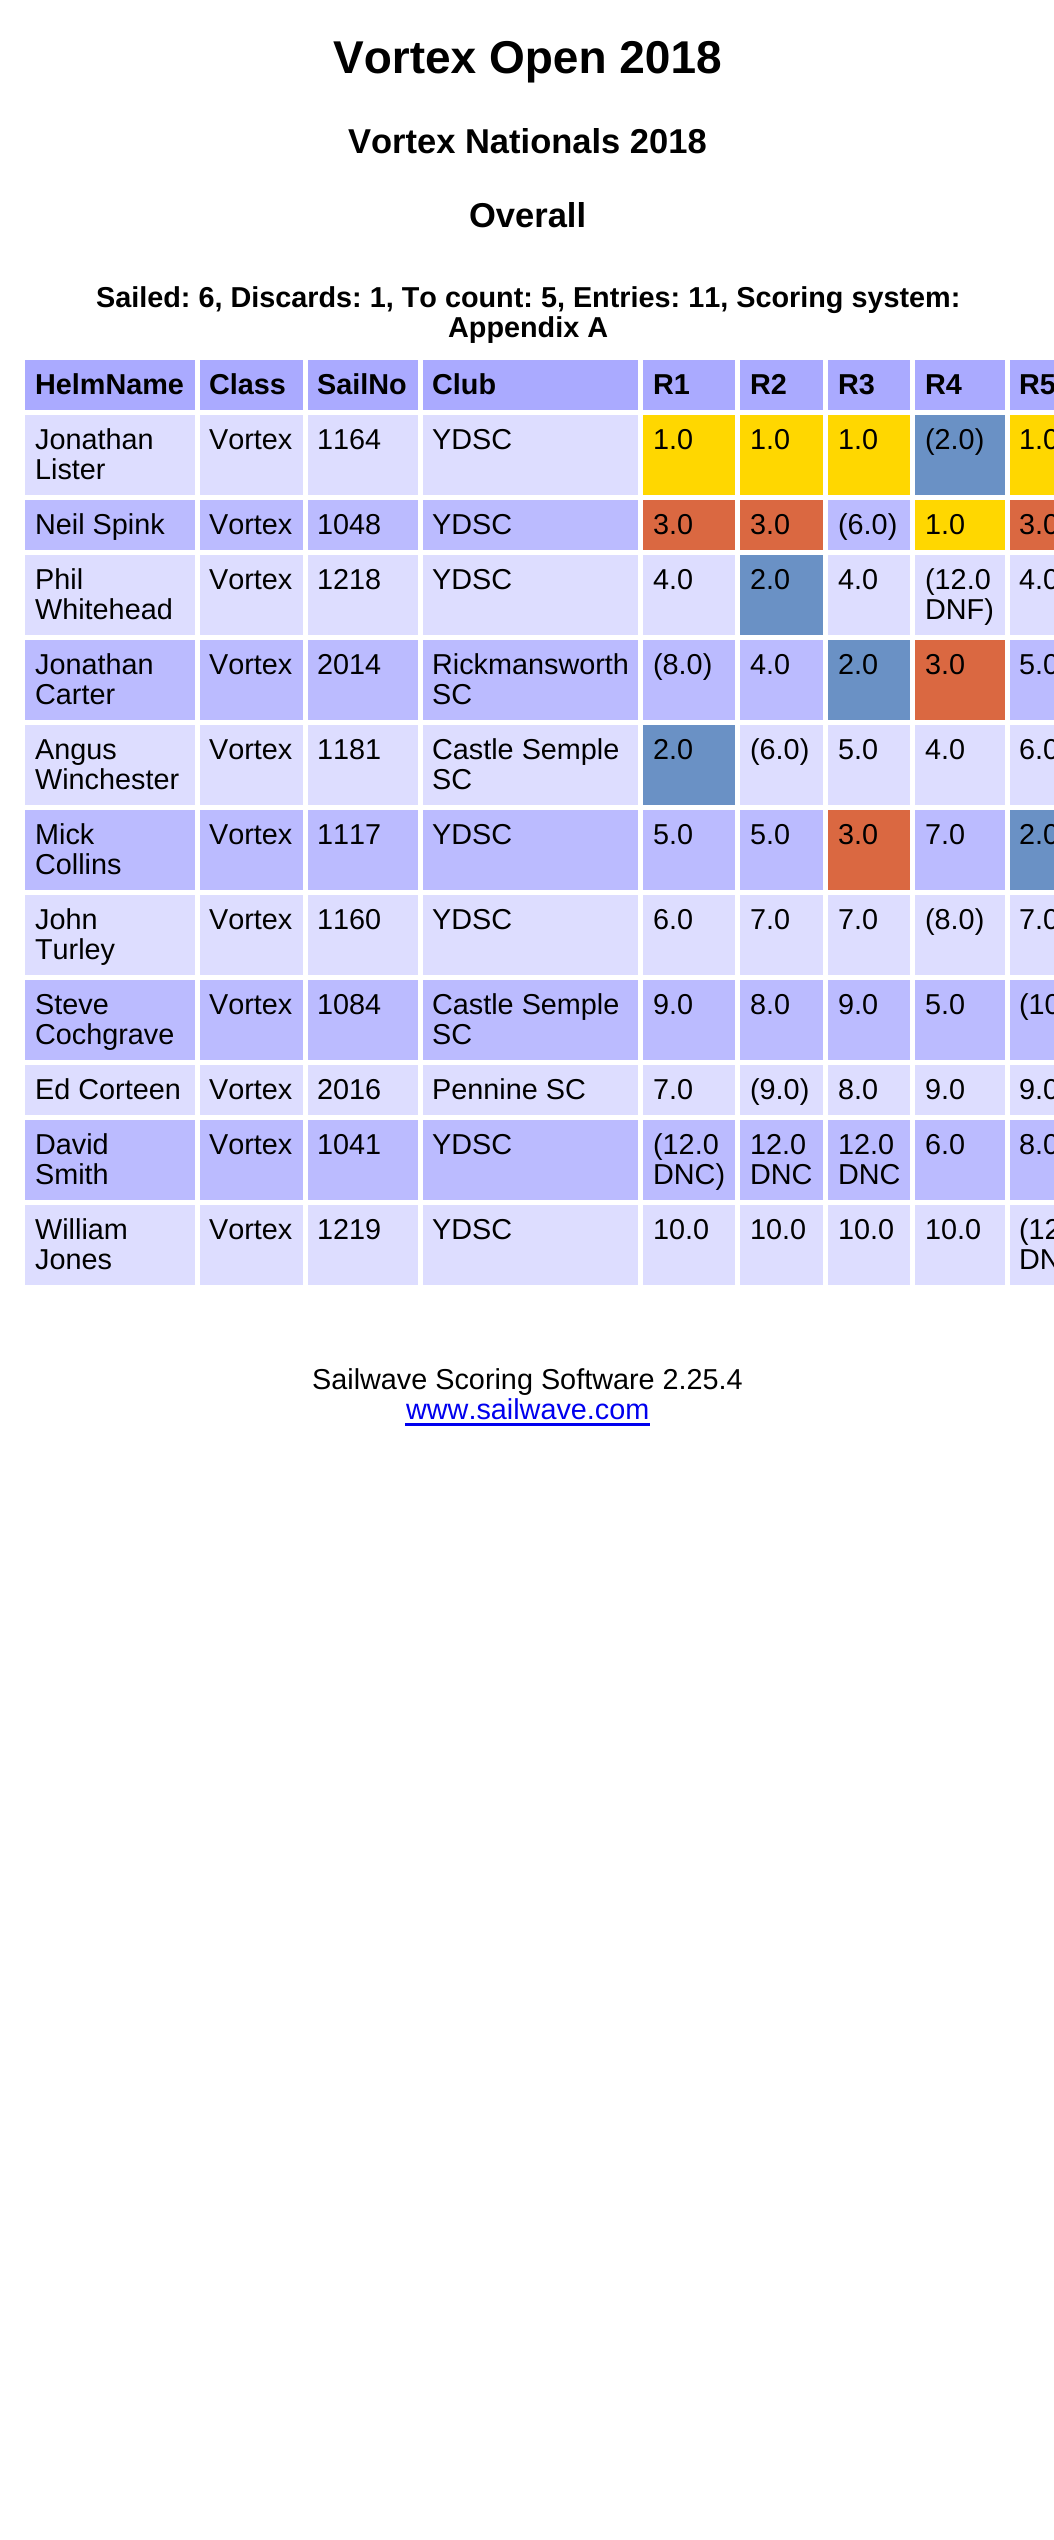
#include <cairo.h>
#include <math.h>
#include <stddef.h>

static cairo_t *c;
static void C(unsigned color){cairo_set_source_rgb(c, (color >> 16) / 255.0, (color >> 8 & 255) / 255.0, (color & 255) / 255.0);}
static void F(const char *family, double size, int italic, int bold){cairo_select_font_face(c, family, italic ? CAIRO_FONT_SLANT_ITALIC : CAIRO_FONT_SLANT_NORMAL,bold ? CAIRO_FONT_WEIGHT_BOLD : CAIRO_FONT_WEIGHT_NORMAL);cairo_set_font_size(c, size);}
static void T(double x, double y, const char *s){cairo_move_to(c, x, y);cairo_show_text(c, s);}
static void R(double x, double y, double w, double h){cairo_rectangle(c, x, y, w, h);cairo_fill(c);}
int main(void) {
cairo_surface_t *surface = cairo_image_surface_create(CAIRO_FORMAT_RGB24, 1054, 2540);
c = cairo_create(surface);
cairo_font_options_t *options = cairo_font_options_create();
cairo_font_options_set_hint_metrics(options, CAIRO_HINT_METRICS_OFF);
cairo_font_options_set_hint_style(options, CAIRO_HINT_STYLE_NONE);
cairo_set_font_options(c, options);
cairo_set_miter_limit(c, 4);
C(0xffffff);
cairo_paint(c);
F("Liberation Sans",46,0,1);
C(0x000000);
T(333,73,"Vortex Open 2018");
F("Liberation Sans",34.5,0,1);
T(348,153,"Vortex Nationals 2018");
T(469,227,"Overall");
F("Liberation Sans",28.8,0,1);
T(96,307,"Sailed: 6, Discards: 1, To count: 5, Entries: 11, Scoring system:");
T(448,337,"Appendix A");
C(0xaaaaff);
R(25,360,170,50);
C(0x000000);
T(35,394,"HelmName");
C(0xaaaaff);
R(200,360,103,50);
C(0x000000);
T(209,394,"Class");
C(0xaaaaff);
R(308,360,110,50);
C(0x000000);
T(317,394,"SailNo");
C(0xaaaaff);
R(423,360,215,50);
C(0x000000);
T(432,394,"Club");
C(0xaaaaff);
R(643,360,92,50);
C(0x000000);
T(653,394,"R1");
C(0xaaaaff);
R(740,360,83,50);
C(0x000000);
T(750,394,"R2");
C(0xaaaaff);
R(828,360,82,50);
C(0x000000);
T(838,394,"R3");
C(0xaaaaff);
R(915,360,90,50);
C(0x000000);
T(925,394,"R4");
C(0xaaaaff);
R(1010,360,44,50);
C(0x000000);
T(1019,394,"R5");
C(0xddddff);
R(25,415,613,80);
F("Liberation Sans",28.8,0,0);
C(0x000000);
T(35,449,"Jonathan");
T(35,479,"Lister");
T(209,449,"Vortex");
T(317,449,"1164");
T(432,449,"YDSC");
C(0xffd700);
R(643,415,92,80);
C(0x000000);
T(653,449,"1.0");
C(0xffd700);
R(740,415,83,80);
C(0x000000);
T(750,449,"1.0");
C(0xffd700);
R(828,415,82,80);
C(0x000000);
T(838,449,"1.0");
C(0x6a91c5);
R(915,415,90,80);
C(0x000000);
T(925,449,"(2.0)");
C(0xffd700);
R(1010,415,44,80);
C(0x000000);
T(1019,449,"1.0");
C(0xbbbbff);
R(25,500,885,50);
C(0x000000);
T(35,534,"Neil Spink");
T(209,534,"Vortex");
T(317,534,"1048");
T(432,534,"YDSC");
C(0xda6841);
R(643,500,92,50);
C(0x000000);
T(653,534,"3.0");
C(0xda6841);
R(740,500,83,50);
C(0x000000);
T(750,534,"3.0");
T(838,534,"(6.0)");
C(0xffd700);
R(915,500,90,50);
C(0x000000);
T(925,534,"1.0");
C(0xda6841);
R(1010,500,44,50);
C(0x000000);
T(1019,534,"3.0");
C(0xddddff);
R(25,555,1029,80);
C(0x000000);
T(35,589,"Phil");
T(35,619,"Whitehead");
T(209,589,"Vortex");
T(317,589,"1218");
T(432,589,"YDSC");
T(653,589,"4.0");
C(0x6a91c5);
R(740,555,83,80);
C(0x000000);
T(750,589,"2.0");
T(838,589,"4.0");
T(925,589,"(12.0");
T(925,619,"DNF)");
T(1019,589,"4.0");
C(0xbbbbff);
R(25,640,1029,80);
C(0x000000);
T(35,674,"Jonathan");
T(35,704,"Carter");
T(209,674,"Vortex");
T(317,674,"2014");
T(432,674,"Rickmansworth");
T(432,704,"SC");
T(653,674,"(8.0)");
T(750,674,"4.0");
C(0x6a91c5);
R(828,640,82,80);
C(0x000000);
T(838,674,"2.0");
C(0xda6841);
R(915,640,90,80);
C(0x000000);
T(925,674,"3.0");
T(1019,674,"5.0");
C(0xddddff);
R(25,725,1029,80);
C(0x000000);
T(35,759,"Angus");
T(35,789,"Winchester");
T(209,759,"Vortex");
T(317,759,"1181");
T(432,759,"Castle Semple");
T(432,789,"SC");
C(0x6a91c5);
R(643,725,92,80);
C(0x000000);
T(653,759,"2.0");
T(750,759,"(6.0)");
T(838,759,"5.0");
T(925,759,"4.0");
C(0xffffff);
R(1005,550,5,260);
C(0x000000);
T(1019,759,"6.0");
C(0xbbbbff);
R(25,810,980,80);
C(0x000000);
T(35,844,"Mick");
T(35,874,"Collins");
T(209,844,"Vortex");
T(317,844,"1117");
T(432,844,"YDSC");
T(653,844,"5.0");
T(750,844,"5.0");
C(0xda6841);
R(828,810,82,80);
C(0x000000);
T(838,844,"3.0");
T(925,844,"7.0");
C(0x6a91c5);
R(1010,810,44,80);
C(0x000000);
T(1019,844,"2.0");
C(0xddddff);
R(25,895,1029,80);
C(0x000000);
T(35,929,"John");
T(35,959,"Turley");
T(209,929,"Vortex");
T(317,929,"1160");
T(432,929,"YDSC");
T(653,929,"6.0");
T(750,929,"7.0");
T(838,929,"7.0");
T(925,929,"(8.0)");
T(1019,929,"7.0");
C(0xbbbbff);
R(25,980,1029,80);
C(0x000000);
T(35,1014,"Steve");
T(35,1044,"Cochgrave");
T(209,1014,"Vortex");
T(317,1014,"1084");
T(432,1014,"Castle Semple");
T(432,1044,"SC");
T(653,1014,"9.0");
T(750,1014,"8.0");
T(838,1014,"9.0");
T(925,1014,"5.0");
T(1019,1014,"(10");
C(0xddddff);
R(25,1065,1029,50);
C(0x000000);
T(35,1099,"Ed Corteen");
T(209,1099,"Vortex");
T(317,1099,"2016");
T(432,1099,"Pennine SC");
T(653,1099,"7.0");
T(750,1099,"(9.0)");
T(838,1099,"8.0");
T(925,1099,"9.0");
T(1019,1099,"9.0");
C(0xbbbbff);
R(25,1120,1029,80);
C(0x000000);
T(35,1154,"David");
T(35,1184,"Smith");
T(209,1154,"Vortex");
T(317,1154,"1041");
T(432,1154,"YDSC");
T(653,1154,"(12.0");
T(653,1184,"DNC)");
T(750,1154,"12.0");
T(750,1184,"DNC");
T(838,1154,"12.0");
T(838,1184,"DNC");
T(925,1154,"6.0");
T(1019,1154,"8.0");
C(0xddddff);
R(25,1205,1029,80);
C(0x000000);
T(35,1239,"William");
T(35,1269,"Jones");
C(0xffffff);
R(195,410,5,880);
C(0x000000);
T(209,1239,"Vortex");
C(0xffffff);
R(303,410,5,880);
C(0x000000);
T(317,1239,"1219");
C(0xffffff);
R(418,410,5,880);
C(0x000000);
T(432,1239,"YDSC");
C(0xffffff);
R(638,495,5,795);
C(0x000000);
T(653,1239,"10.0");
C(0xffffff);
R(735,495,5,795);
C(0x000000);
T(750,1239,"10.0");
C(0xffffff);
R(823,495,5,795);
C(0x000000);
T(838,1239,"10.0");
C(0xffffff);
R(910,550,5,740);
C(0x000000);
T(925,1239,"10.0");
C(0xffffff);
R(1005,890,5,400);
C(0x000000);
T(1019,1239,"(12");
T(1019,1269,"DN");
T(312,1389,"Sailwave Scoring Software 2.25.4");
C(0x0000ee);
T(406,1419,"www.sailwave.com");
R(405,1423,245,3);
cairo_surface_write_to_png(surface, "o.png");
cairo_font_options_destroy(options);
cairo_destroy(c);
cairo_surface_destroy(surface);
return 0;
}
